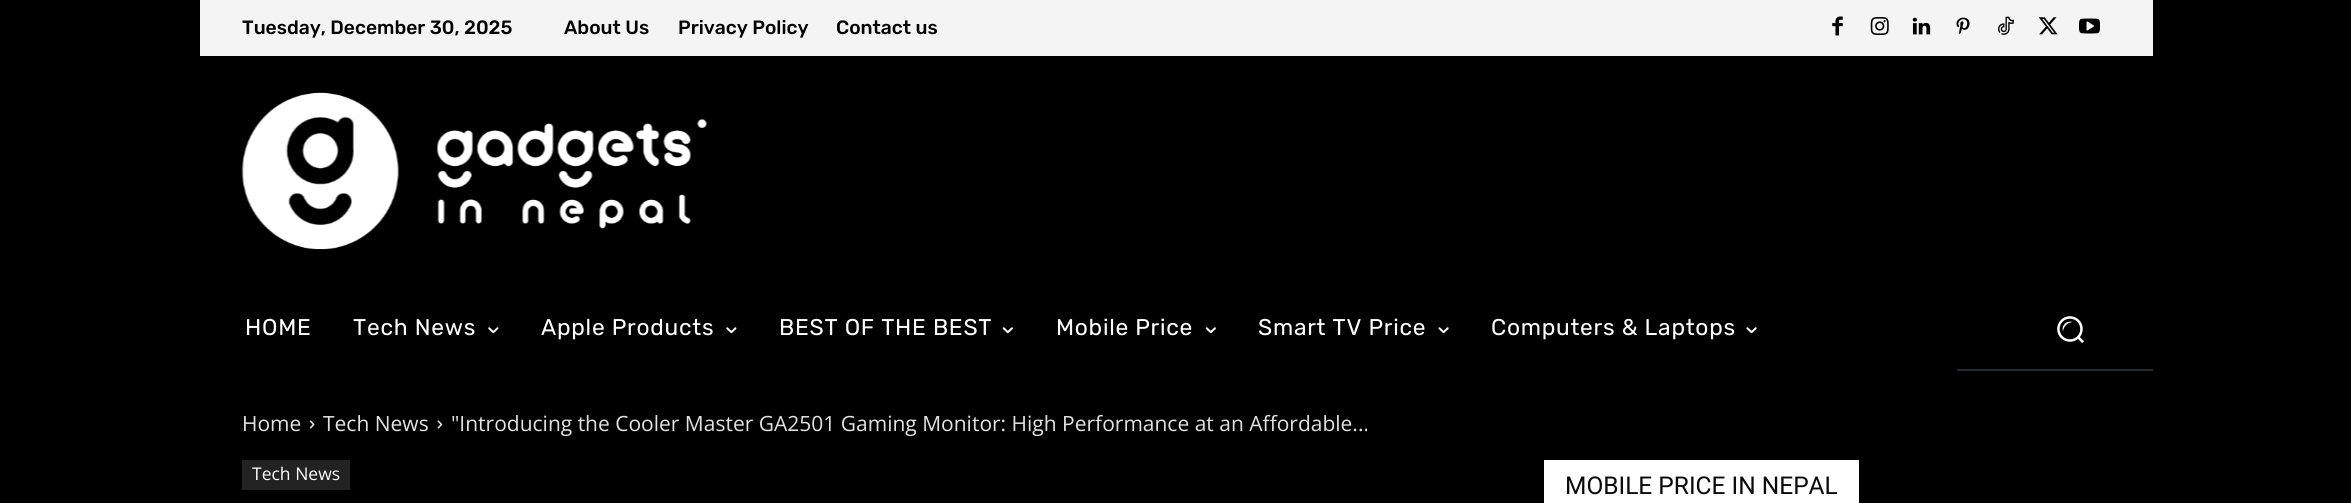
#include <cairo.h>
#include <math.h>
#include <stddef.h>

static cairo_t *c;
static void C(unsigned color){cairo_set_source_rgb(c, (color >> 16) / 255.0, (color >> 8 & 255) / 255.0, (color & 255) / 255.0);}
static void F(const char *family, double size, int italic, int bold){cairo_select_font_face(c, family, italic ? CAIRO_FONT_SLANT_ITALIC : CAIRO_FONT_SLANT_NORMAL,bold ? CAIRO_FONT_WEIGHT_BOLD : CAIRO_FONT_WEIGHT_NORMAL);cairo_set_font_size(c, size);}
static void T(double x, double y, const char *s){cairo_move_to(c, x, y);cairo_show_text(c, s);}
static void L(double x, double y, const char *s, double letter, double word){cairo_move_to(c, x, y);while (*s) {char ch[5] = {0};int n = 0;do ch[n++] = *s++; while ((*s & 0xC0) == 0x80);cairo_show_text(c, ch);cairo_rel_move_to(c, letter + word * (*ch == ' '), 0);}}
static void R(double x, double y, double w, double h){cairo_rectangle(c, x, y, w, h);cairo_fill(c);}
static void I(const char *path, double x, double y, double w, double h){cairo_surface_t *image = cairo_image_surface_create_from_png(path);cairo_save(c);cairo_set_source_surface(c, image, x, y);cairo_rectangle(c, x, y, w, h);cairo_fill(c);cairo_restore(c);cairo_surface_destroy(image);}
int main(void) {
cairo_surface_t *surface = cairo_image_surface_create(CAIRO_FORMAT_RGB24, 2351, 503);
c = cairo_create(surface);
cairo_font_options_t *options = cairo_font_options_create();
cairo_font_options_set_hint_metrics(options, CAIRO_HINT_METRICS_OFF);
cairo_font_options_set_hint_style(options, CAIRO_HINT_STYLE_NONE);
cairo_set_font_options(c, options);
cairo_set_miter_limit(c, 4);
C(0x000000);
cairo_paint(c);
C(0xf4f4f4);
R(200,0,1953,56);
F("Rubik Medium",19.25,0,0);
C(0x000000);
T(242,34,"Tuesday, December 30, 2025");
T(564,34,"About Us");
T(678,34,"Privacy Policy");
T(836,34,"Contact us");
I("1.png",1832,16,11,20);
I("2.png",1870,17,19,18);
I("3.png",1912,17,19,18);
I("4.png",1956,17,14,18);
I("5.png",1998,16,16,19);
I("6.png",2038,17,20,18);
I("7.png",2079,18,21,16);
I("8.png",241,92,466,158);
F("Rubik",22.75,0,0);
C(0xffffff);
L(245,335,"HOME",.75,0);
L(353,335,"Tech News",.75,0);
I("9.png",488,327,11,7);
L(541,335,"Apple Products",.75,0);
I("9.png",726,327,11,7);
L(779,335,"BEST OF THE BEST",.75,0);
I("10.png",1002,327,11,7);
L(1056,335,"Mobile Price",.75,0);
I("10.png",1205,327,11,7);
L(1258,335,"Smart TV Price",.75,0);
I("11.png",1438,327,11,7);
L(1491,335,"Computers & Laptops",.75,0);
I("11.png",1746,327,11,7);
I("12.png",2057,316,27,27);
C(0x232d35);
R(1957,369,196,2);
F("Open Sans",21,0,0);
C(0xe2e2e2);
T(242,431,"Home");
I("13.png",309,420,6,9);
T(323,431,"Tech News");
I("14.png",437,420,6,9);
T(451,431,"\"Introducing the Cooler Master GA2501 Gaming Monitor: High Performance at an Affordable...");
C(0x222222);
R(242,460,108,30);
F("Open Sans",17.5,0,0);
C(0xffffff);
T(252,480,"Tech News");
R(1544,460,315,43);
F("Roboto",24.5,0,0);
C(0x0a0a0a);
T(1565,494,"MOBILE PRICE IN NEPAL");
cairo_surface_write_to_png(surface, "o.png");
cairo_font_options_destroy(options);
cairo_destroy(c);
cairo_surface_destroy(surface);
return 0;
}
